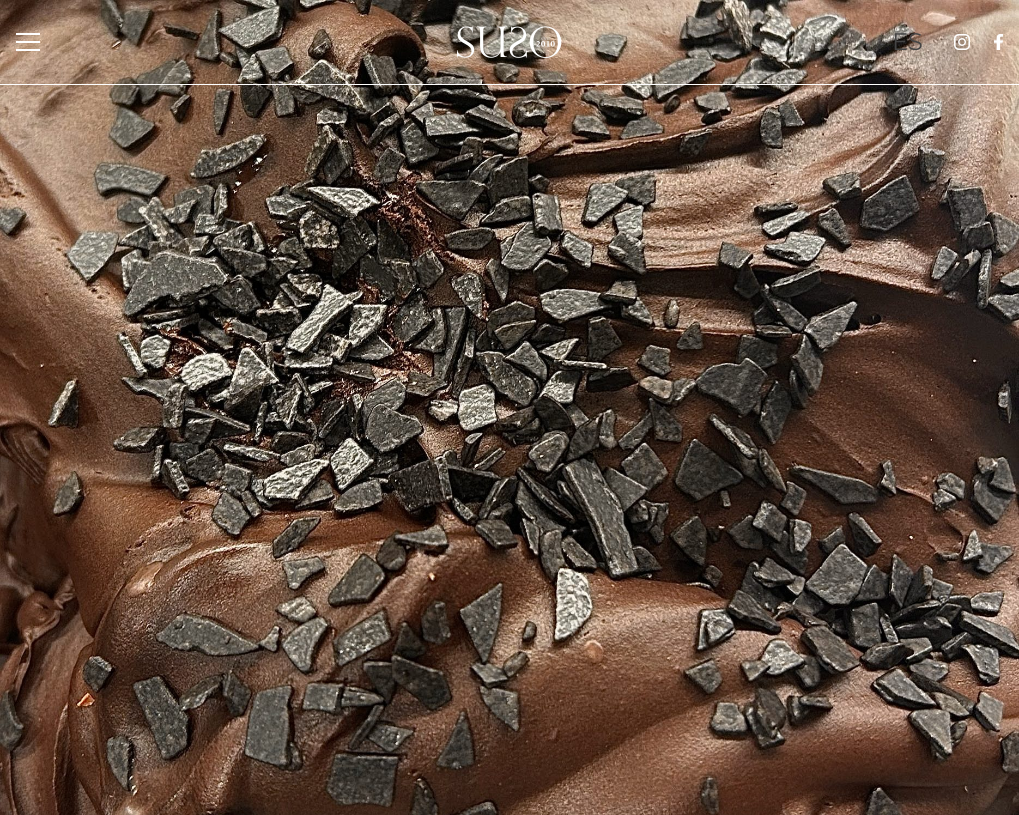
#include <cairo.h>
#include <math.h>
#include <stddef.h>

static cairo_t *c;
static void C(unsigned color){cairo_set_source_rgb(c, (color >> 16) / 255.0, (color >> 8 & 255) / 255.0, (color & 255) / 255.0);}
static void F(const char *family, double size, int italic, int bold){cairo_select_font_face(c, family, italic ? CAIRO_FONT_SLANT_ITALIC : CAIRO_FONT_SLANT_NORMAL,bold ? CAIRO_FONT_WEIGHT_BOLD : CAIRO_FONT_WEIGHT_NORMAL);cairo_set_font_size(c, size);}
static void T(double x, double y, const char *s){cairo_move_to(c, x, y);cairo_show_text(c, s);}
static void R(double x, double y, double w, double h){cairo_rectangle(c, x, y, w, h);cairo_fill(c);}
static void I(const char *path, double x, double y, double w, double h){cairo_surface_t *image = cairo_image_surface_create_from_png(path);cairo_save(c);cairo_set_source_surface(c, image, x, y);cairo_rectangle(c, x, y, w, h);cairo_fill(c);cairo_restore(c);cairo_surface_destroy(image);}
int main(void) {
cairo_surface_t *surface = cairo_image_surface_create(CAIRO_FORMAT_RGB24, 1019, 815);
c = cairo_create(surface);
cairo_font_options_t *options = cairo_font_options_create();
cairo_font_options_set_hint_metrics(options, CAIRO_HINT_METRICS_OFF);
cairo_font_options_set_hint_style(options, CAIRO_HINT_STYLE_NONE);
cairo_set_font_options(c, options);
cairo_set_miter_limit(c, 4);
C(0xffffff);
cairo_paint(c);
I("1.png",0,0,1019,815);
C(0xffffff);
R(0,84,1019,1);
R(16,33,24,2);
R(16,41,24,2);
R(16,49,24,2);
I("2.png",457,26,105,32);
F("Montserrat",24,0,0);
C(0x444444);
T(892,50,"ES");
I("3.png",954,34,16,16);
I("4.png",994,34,9,16);
cairo_surface_write_to_png(surface, "o.png");
cairo_font_options_destroy(options);
cairo_destroy(c);
cairo_surface_destroy(surface);
return 0;
}
